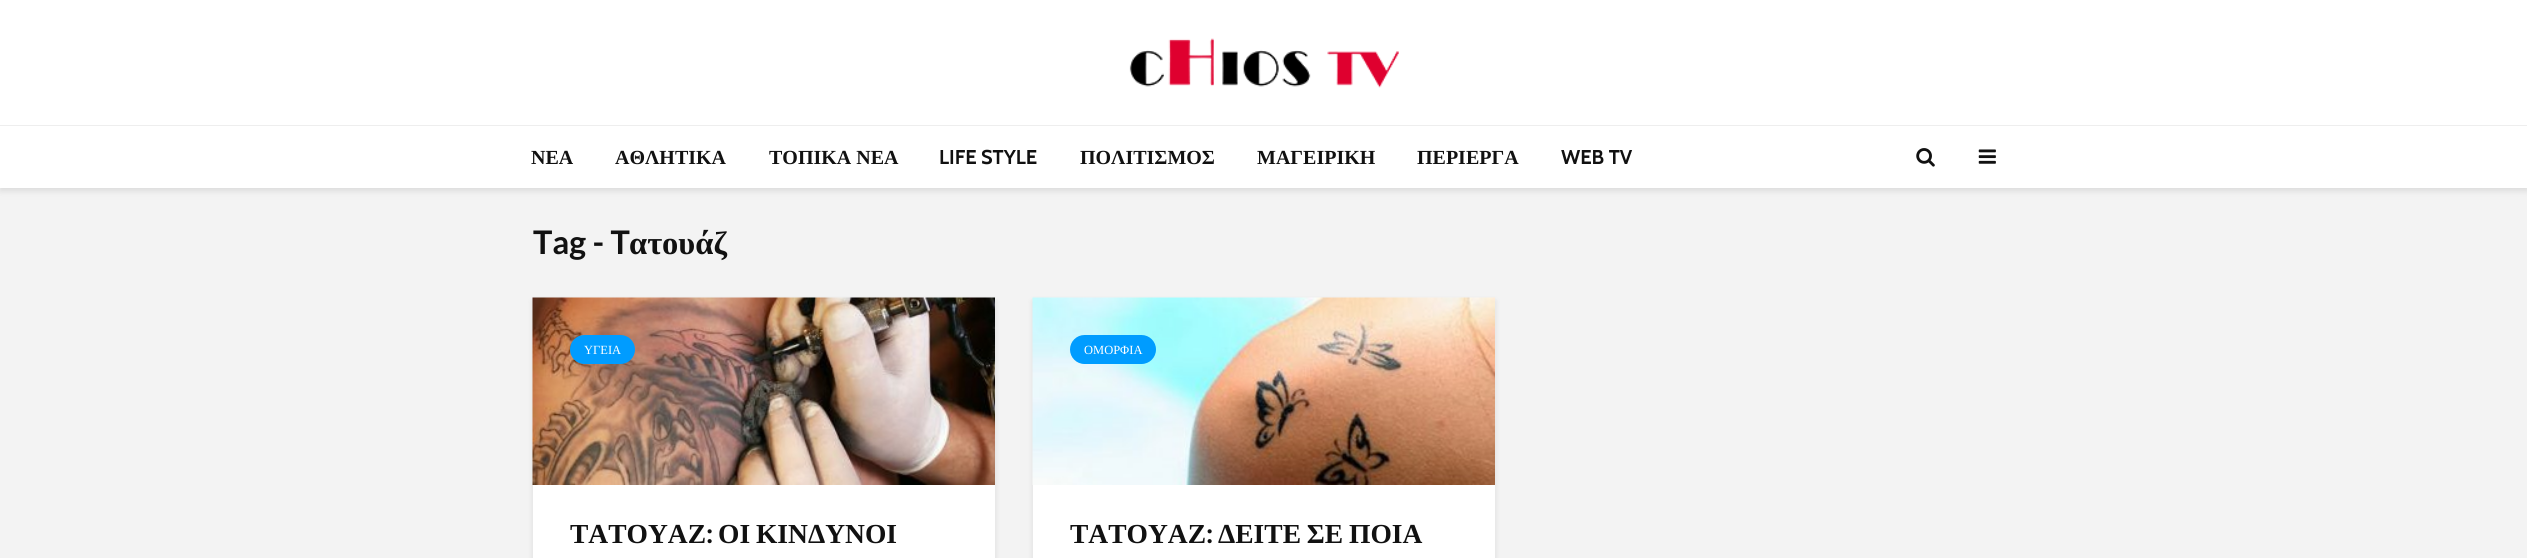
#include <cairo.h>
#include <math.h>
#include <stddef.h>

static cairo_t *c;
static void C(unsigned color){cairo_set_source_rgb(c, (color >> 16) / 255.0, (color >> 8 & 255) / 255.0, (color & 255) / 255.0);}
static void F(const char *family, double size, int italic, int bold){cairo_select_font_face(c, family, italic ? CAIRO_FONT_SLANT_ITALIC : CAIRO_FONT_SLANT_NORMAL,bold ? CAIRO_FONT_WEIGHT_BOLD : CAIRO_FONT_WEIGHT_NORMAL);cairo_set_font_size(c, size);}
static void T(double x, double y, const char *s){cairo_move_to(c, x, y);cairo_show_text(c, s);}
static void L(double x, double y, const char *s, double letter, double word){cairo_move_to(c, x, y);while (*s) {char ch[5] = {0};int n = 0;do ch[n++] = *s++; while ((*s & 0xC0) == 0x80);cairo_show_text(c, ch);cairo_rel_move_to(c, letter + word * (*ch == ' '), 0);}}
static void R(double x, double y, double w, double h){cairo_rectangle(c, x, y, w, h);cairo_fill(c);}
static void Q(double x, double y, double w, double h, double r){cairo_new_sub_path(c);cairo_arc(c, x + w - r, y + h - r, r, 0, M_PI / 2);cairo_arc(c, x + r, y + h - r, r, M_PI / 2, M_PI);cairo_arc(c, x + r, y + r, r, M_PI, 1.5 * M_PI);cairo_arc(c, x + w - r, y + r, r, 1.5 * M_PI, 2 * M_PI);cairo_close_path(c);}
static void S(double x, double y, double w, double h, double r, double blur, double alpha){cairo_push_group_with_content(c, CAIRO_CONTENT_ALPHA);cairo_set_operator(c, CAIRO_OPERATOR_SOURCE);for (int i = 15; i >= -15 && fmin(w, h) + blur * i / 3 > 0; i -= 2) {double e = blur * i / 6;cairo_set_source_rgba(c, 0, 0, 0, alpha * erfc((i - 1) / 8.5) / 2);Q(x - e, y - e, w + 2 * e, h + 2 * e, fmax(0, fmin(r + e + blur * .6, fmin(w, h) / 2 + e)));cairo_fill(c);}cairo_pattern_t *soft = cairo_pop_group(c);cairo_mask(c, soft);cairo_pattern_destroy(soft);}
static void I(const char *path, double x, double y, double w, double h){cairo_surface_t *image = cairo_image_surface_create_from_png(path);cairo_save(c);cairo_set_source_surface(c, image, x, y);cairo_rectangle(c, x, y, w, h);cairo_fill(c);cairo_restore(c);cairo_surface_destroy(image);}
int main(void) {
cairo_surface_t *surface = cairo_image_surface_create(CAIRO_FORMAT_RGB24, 2527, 558);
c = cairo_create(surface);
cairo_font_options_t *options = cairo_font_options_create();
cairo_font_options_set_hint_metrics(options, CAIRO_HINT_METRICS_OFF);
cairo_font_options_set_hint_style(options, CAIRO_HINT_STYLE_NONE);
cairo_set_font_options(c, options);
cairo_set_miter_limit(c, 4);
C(0xf3f3f3);
cairo_paint(c);
C(0x000101);
S(0,4,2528,187,0,3,.1);
C(0xffffff);
R(0,0,2527,125);
I("1.png",1129,38,270,50);
R(0,126,2527,62);
C(0xeeeeee);
R(0,125,2527,1);
F("Liberation Serif",20,0,1);
C(0x111111);
T(531,164,"ΝΕΑ");
T(615,164,"ΑΘΛΗΤΙΚΑ");
T(769,164,"ΤΟΠΙΚΑ ΝΕΑ");
F("Cabin",20,0,1);
T(939,164,"LIFE STYLE");
F("Liberation Serif",20,0,1);
T(1080,164,"ΠΟΛΙΤΙΣΜΟΣ");
T(1257,164,"ΜΑΓΕΙΡΙΚΗ");
T(1417,164,"ΠΕΡΙΕΡΓΑ");
F("Cabin",20,0,1);
T(1561,164,"WEB TV");
I("2.png",1916,148,19,19);
I("3.png",1978,149,18,15);
F("Lato",32.5,0,1);
T(533,254,"Tag - T");
F("Liberation Serif",32.5,0,1);
T(629,254,"ατουάζ");
C(0x000101);
S(533,301,462,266,0,3,.1);
C(0xffffff);
R(533,485,462,73);
I("4.png",532,297,463,188);
C(0x009cff);
Q(570,335,65,29,14.5);
cairo_fill(c);
F("Liberation Serif",12.5,0,0);
C(0xffffff);
T(584,354,"ΥΓΕΙΑ");
F("Liberation Serif",27.5,0,1);
C(0x111111);
T(570,543,"ΤΑΤΟΥΑΖ");
F("Lato",27.5,0,1);
T(706,543,":");
F("Liberation Serif",27.5,0,1);
L(718,543,"ΟΙ ΚΙΝΔΥΝΟΙ",0,-1);
C(0x000101);
S(1033,301,462,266,0,3,.1);
C(0xffffff);
R(1033,485,462,73);
I("5.png",1032,297,463,188);
C(0x009cff);
Q(1070,335,86,29,14.5);
cairo_fill(c);
F("Liberation Serif",12.5,0,0);
C(0xffffff);
T(1084,354,"ΟΜΟΡΦΙΑ");
F("Liberation Serif",27.5,0,1);
C(0x111111);
T(1070,543,"ΤΑΤΟΥΑΖ");
F("Lato",27.5,0,1);
T(1206,543,":");
F("Liberation Serif",27.5,0,1);
L(1218,543,"ΔΕΙΤΕ ΣΕ ΠΟΙΑ",0,-1);
cairo_surface_write_to_png(surface, "o.png");
cairo_font_options_destroy(options);
cairo_destroy(c);
cairo_surface_destroy(surface);
return 0;
}
